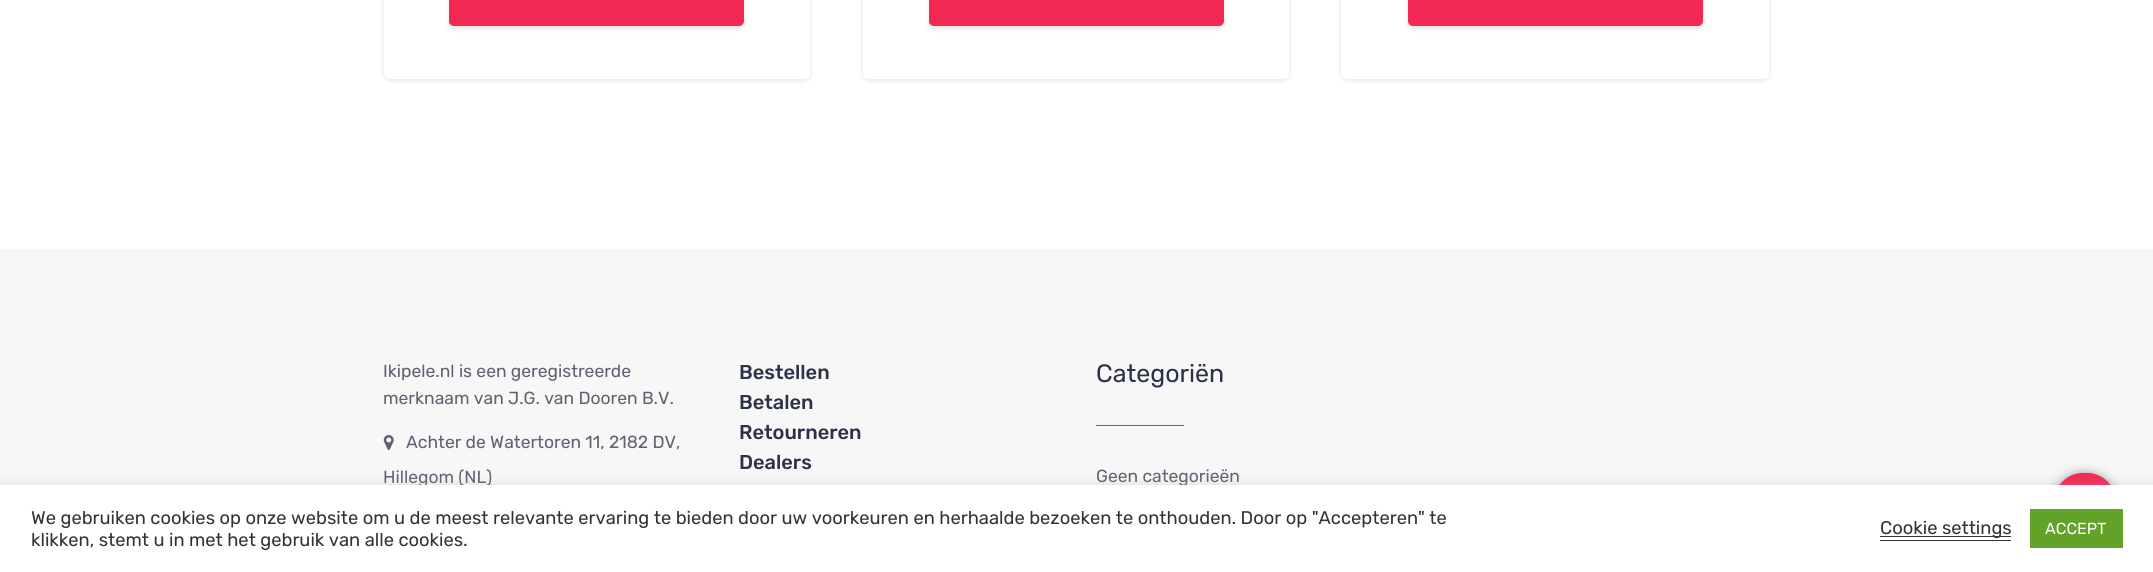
#include <cairo.h>
#include <math.h>
#include <stddef.h>

static cairo_t *c;
static void C(unsigned color){cairo_set_source_rgb(c, (color >> 16) / 255.0, (color >> 8 & 255) / 255.0, (color & 255) / 255.0);}
static void F(const char *family, double size, int italic, int bold){cairo_select_font_face(c, family, italic ? CAIRO_FONT_SLANT_ITALIC : CAIRO_FONT_SLANT_NORMAL,bold ? CAIRO_FONT_WEIGHT_BOLD : CAIRO_FONT_WEIGHT_NORMAL);cairo_set_font_size(c, size);}
static void T(double x, double y, const char *s){cairo_move_to(c, x, y);cairo_show_text(c, s);}
static void R(double x, double y, double w, double h){cairo_rectangle(c, x, y, w, h);cairo_fill(c);}
static void Q(double x, double y, double w, double h, double r){cairo_new_sub_path(c);cairo_arc(c, x + w - r, y + h - r, r, 0, M_PI / 2);cairo_arc(c, x + r, y + h - r, r, M_PI / 2, M_PI);cairo_arc(c, x + r, y + r, r, M_PI, 1.5 * M_PI);cairo_arc(c, x + w - r, y + r, r, 1.5 * M_PI, 2 * M_PI);cairo_close_path(c);}
static void S(double x, double y, double w, double h, double r, double blur, double alpha){cairo_push_group_with_content(c, CAIRO_CONTENT_ALPHA);cairo_set_operator(c, CAIRO_OPERATOR_SOURCE);for (int i = 15; i >= -15 && fmin(w, h) + blur * i / 3 > 0; i -= 2) {double e = blur * i / 6;cairo_set_source_rgba(c, 0, 0, 0, alpha * erfc((i - 1) / 8.5) / 2);Q(x - e, y - e, w + 2 * e, h + 2 * e, fmax(0, fmin(r + e + blur * .6, fmin(w, h) / 2 + e)));cairo_fill(c);}cairo_pattern_t *soft = cairo_pop_group(c);cairo_mask(c, soft);cairo_pattern_destroy(soft);}
static void I(const char *path, double x, double y, double w, double h){cairo_surface_t *image = cairo_image_surface_create_from_png(path);cairo_save(c);cairo_set_source_surface(c, image, x, y);cairo_rectangle(c, x, y, w, h);cairo_fill(c);cairo_restore(c);cairo_surface_destroy(image);}
int main(void) {
cairo_surface_t *surface = cairo_image_surface_create(CAIRO_FORMAT_RGB24, 2153, 572);
c = cairo_create(surface);
cairo_font_options_t *options = cairo_font_options_create();
cairo_font_options_set_hint_metrics(options, CAIRO_HINT_METRICS_OFF);
cairo_font_options_set_hint_style(options, CAIRO_HINT_STYLE_NONE);
cairo_set_font_options(c, options);
cairo_set_miter_limit(c, 4);
C(0xffffff);
cairo_paint(c);
cairo_save(c);
cairo_set_fill_rule(c,CAIRO_FILL_RULE_EVEN_ODD);
cairo_new_path(c);
cairo_move_to(c,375,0);
cairo_line_to(c,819,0);
cairo_line_to(c,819,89);
cairo_line_to(c,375,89);
cairo_close_path(c);
cairo_move_to(c,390,-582);
cairo_line_to(c,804,-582);
cairo_curve_to(c,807.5,-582,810,-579.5,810,-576);
cairo_line_to(c,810,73);
cairo_curve_to(c,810,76.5,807.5,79,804,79);
cairo_line_to(c,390,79);
cairo_curve_to(c,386.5,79,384,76.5,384,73);
cairo_line_to(c,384,-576);
cairo_curve_to(c,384,-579.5,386.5,-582,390,-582);
cairo_close_path(c);
cairo_clip(c);
C(0x2c313b);
S(384,-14,426,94,6,2.5,.15);
cairo_restore(c);
C(0x000000);
S(449,-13,295,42,5,2.5,.1);
C(0xf22853);
Q(449,-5,295,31,5);
cairo_fill(c);
cairo_save(c);
cairo_set_fill_rule(c,CAIRO_FILL_RULE_EVEN_ODD);
cairo_new_path(c);
cairo_move_to(c,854,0);
cairo_line_to(c,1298,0);
cairo_line_to(c,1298,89);
cairo_line_to(c,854,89);
cairo_close_path(c);
cairo_move_to(c,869,-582);
cairo_line_to(c,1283,-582);
cairo_curve_to(c,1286.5,-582,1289,-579.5,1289,-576);
cairo_line_to(c,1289,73);
cairo_curve_to(c,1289,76.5,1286.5,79,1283,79);
cairo_line_to(c,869,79);
cairo_curve_to(c,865.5,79,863,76.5,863,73);
cairo_line_to(c,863,-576);
cairo_curve_to(c,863,-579.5,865.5,-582,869,-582);
cairo_close_path(c);
cairo_clip(c);
C(0x2c313b);
S(863,-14,426,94,6,2.5,.15);
cairo_restore(c);
C(0x000000);
S(929,-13,295,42,5,2.5,.1);
C(0xf22853);
Q(929,-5,295,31,5);
cairo_fill(c);
cairo_save(c);
cairo_set_fill_rule(c,CAIRO_FILL_RULE_EVEN_ODD);
cairo_new_path(c);
cairo_move_to(c,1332,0);
cairo_line_to(c,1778,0);
cairo_line_to(c,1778,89);
cairo_line_to(c,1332,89);
cairo_close_path(c);
cairo_move_to(c,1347,-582);
cairo_line_to(c,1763,-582);
cairo_curve_to(c,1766.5,-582,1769,-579.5,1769,-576);
cairo_line_to(c,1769,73);
cairo_curve_to(c,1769,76.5,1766.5,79,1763,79);
cairo_line_to(c,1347,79);
cairo_curve_to(c,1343.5,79,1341,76.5,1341,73);
cairo_line_to(c,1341,-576);
cairo_curve_to(c,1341,-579.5,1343.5,-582,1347,-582);
cairo_close_path(c);
cairo_clip(c);
C(0x2c313b);
S(1341,-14,428,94,6,2.5,.15);
cairo_restore(c);
C(0x000000);
S(1408,-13,295,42,5,2.5,.1);
C(0xf22853);
Q(1408,-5,295,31,5);
cairo_fill(c);
C(0xf7f7f7);
R(0,249,2153,236);
F("Rubik",17.5,0,0);
C(0x5e6271);
T(383,377,"Ikipele.nl is een geregistreerde");
T(383,404,"merknaam van J.G. van Dooren B.V.");
I("1.png",383,435,11,15);
T(406,448,"Achter de Watertoren 11, 2182 DV,");
T(383,483,"Hillegom (NL)");
F("Rubik Medium",20,0,0);
C(0x2c3145);
T(739,379,"Bestellen");
T(739,409,"Betalen");
T(739,439,"Retourneren");
T(739,469,"Dealers");
F("Rubik",25,0,0);
T(1096,382,"Categoriën");
C(0xf22853);
R(1096,425,88,1);
F("Rubik",17.5,0,0);
C(0x5e6271);
T(1096,482,"Geen categorieën");
C(0x000000);
S(2054,475,62,63,29,6,.5);
C(0xf22853);
Q(2054,473,62,62,29);
cairo_fill(c);
C(0xacabab);
S(0,484,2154,87,0,6,.3);
C(0xffffff);
R(0,485,2153,87);
F("Rubik",18.33,0,0);
C(0x333333);
T(31,524,"We gebruiken cookies op onze website om u de meest relevante ervaring te bieden door uw voorkeuren en herhaalde bezoeken te onthouden. Door op \"Accepteren\" te");
T(31,546,"klikken, stemt u in met het gebruik van alle cookies.");
R(1880,540,131,1);
R(1880,536,131,1);
T(1880,534,"Cookie settings");
C(0x61a229);
R(2030,509,93,39);
F("Rubik",16,0,0);
C(0xffffff);
T(2045,534,"ACCEPT");
cairo_surface_write_to_png(surface, "o.png");
cairo_font_options_destroy(options);
cairo_destroy(c);
cairo_surface_destroy(surface);
return 0;
}
